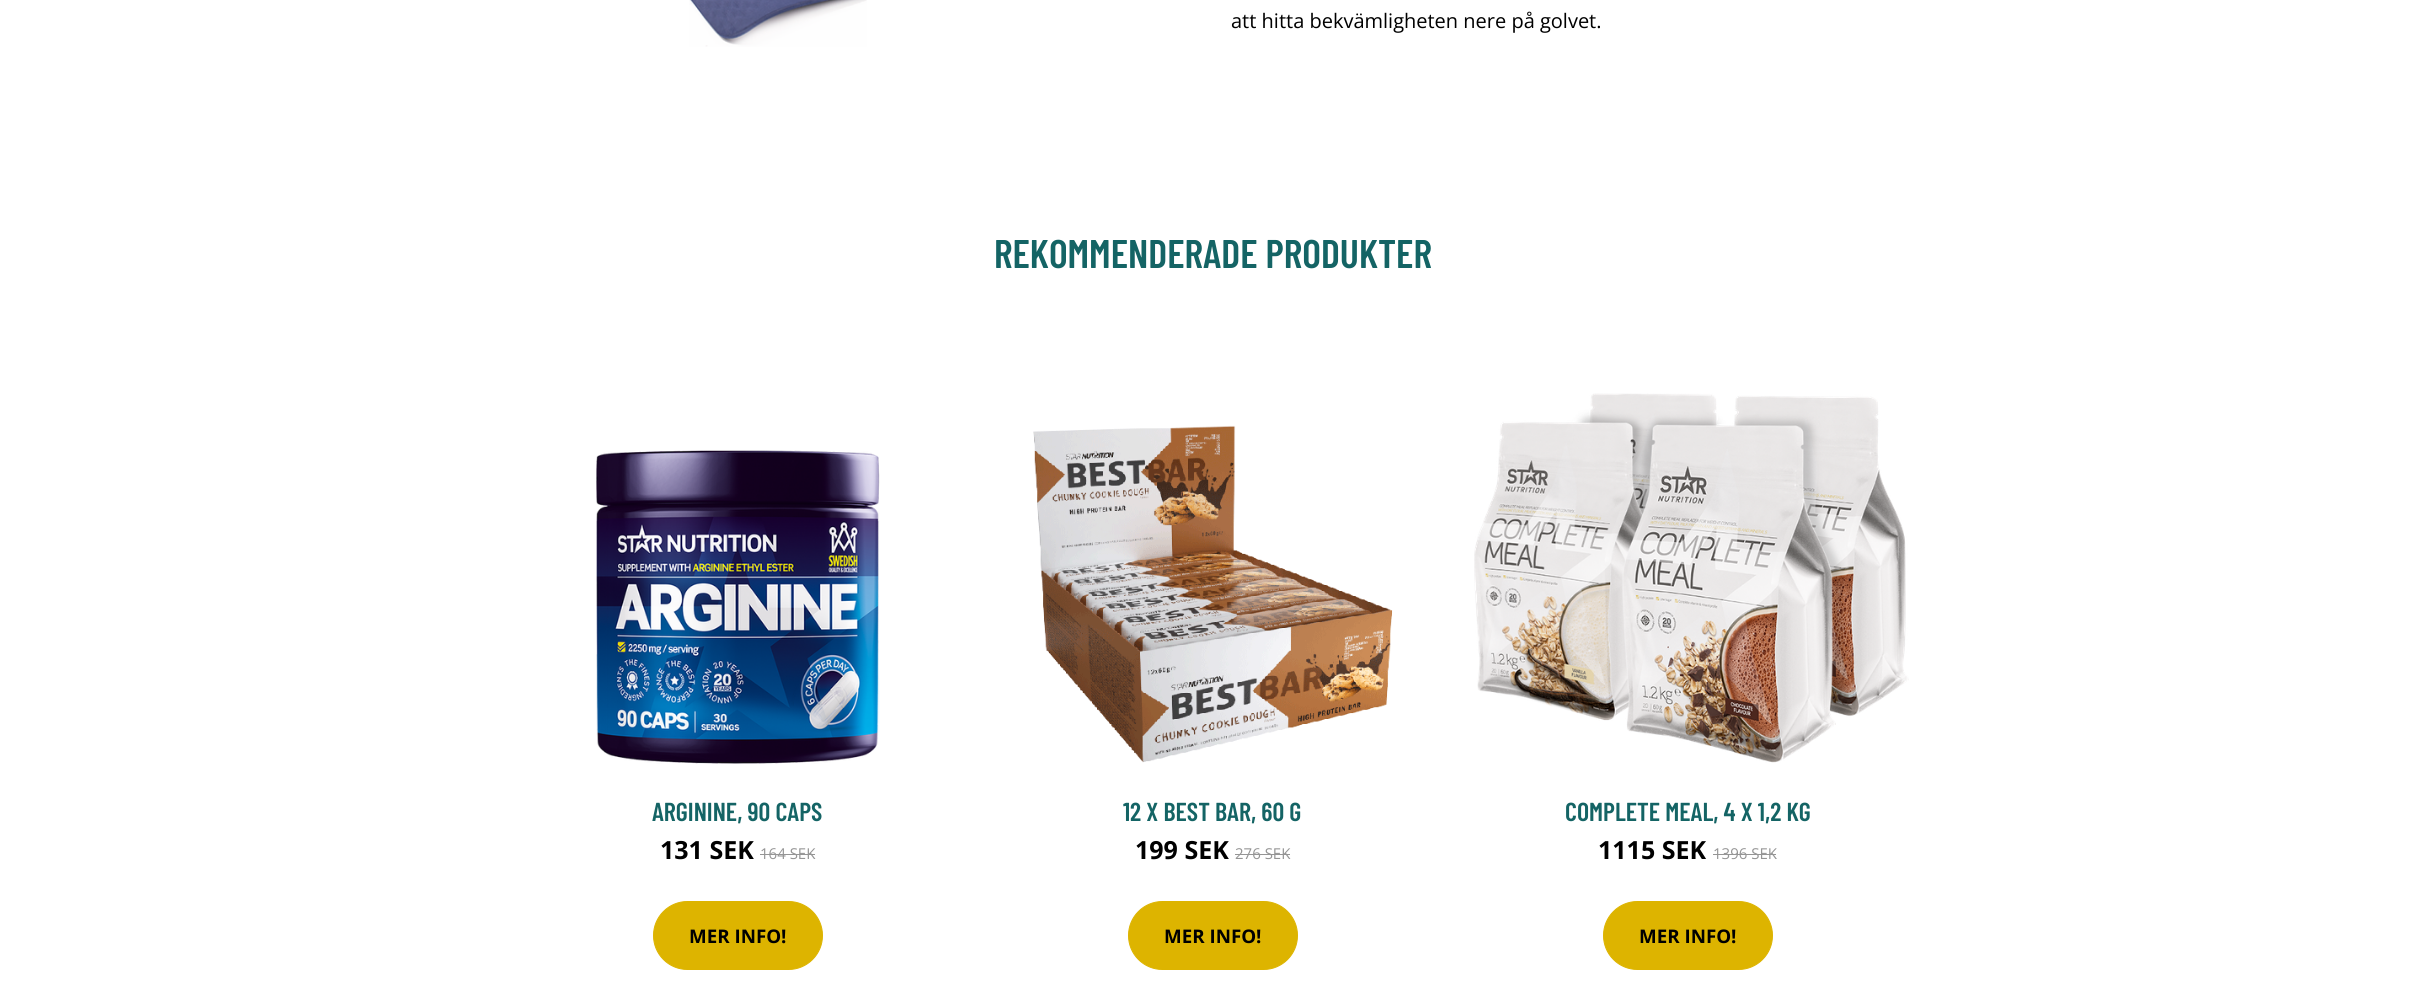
#include <cairo.h>
#include <math.h>
#include <stddef.h>

static cairo_t *c;
static void C(unsigned color){cairo_set_source_rgb(c, (color >> 16) / 255.0, (color >> 8 & 255) / 255.0, (color & 255) / 255.0);}
static void F(const char *family, double size, int italic, int bold){cairo_select_font_face(c, family, italic ? CAIRO_FONT_SLANT_ITALIC : CAIRO_FONT_SLANT_NORMAL,bold ? CAIRO_FONT_WEIGHT_BOLD : CAIRO_FONT_WEIGHT_NORMAL);cairo_set_font_size(c, size);}
static void T(double x, double y, const char *s){cairo_move_to(c, x, y);cairo_show_text(c, s);}
static void R(double x, double y, double w, double h){cairo_rectangle(c, x, y, w, h);cairo_fill(c);}
static void Q(double x, double y, double w, double h, double r){cairo_new_sub_path(c);cairo_arc(c, x + w - r, y + h - r, r, 0, M_PI / 2);cairo_arc(c, x + r, y + h - r, r, M_PI / 2, M_PI);cairo_arc(c, x + r, y + r, r, M_PI, 1.5 * M_PI);cairo_arc(c, x + w - r, y + r, r, 1.5 * M_PI, 2 * M_PI);cairo_close_path(c);}
static void I(const char *path, double x, double y, double w, double h){cairo_surface_t *image = cairo_image_surface_create_from_png(path);cairo_save(c);cairo_set_source_surface(c, image, x, y);cairo_rectangle(c, x, y, w, h);cairo_fill(c);cairo_restore(c);cairo_surface_destroy(image);}
int main(void) {
cairo_surface_t *surface = cairo_image_surface_create(CAIRO_FORMAT_RGB24, 2424, 1008);
c = cairo_create(surface);
cairo_font_options_t *options = cairo_font_options_create();
cairo_font_options_set_hint_metrics(options, CAIRO_HINT_METRICS_OFF);
cairo_font_options_set_hint_style(options, CAIRO_HINT_STYLE_NONE);
cairo_set_font_options(c, options);
cairo_set_miter_limit(c, 4);
C(0xffffff);
cairo_paint(c);
I("1.png",689,0,178,47);
F("Open Sans",20,0,0);
C(0x000000);
T(1231,28,"att hitta bekvämligheten nere på golvet.");
F("Barlow Condensed SemiBold",40,0,0);
C(0x146465);
T(994,268,"REKOMMENDERADE PRODUKTER");
I("2.png",596,450,284,314);
F("Barlow Condensed SemiBold",26,0,0);
T(652,821,"ARGININE, 90 CAPS");
F("Open Sans",25,0,1);
C(0x000000);
T(660,859,"131 SEK");
F("Open Sans",15,0,0);
C(0x959595);
T(760,859,"164 SEK");
R(760,854,55,1);
C(0xddb400);
Q(653.5,901.5,169,68,34);
cairo_fill_preserve(c);
cairo_set_line_width(c,1);
cairo_stroke(c);
F("Open Sans",18.75,0,1);
C(0x000000);
T(689,943,"MER INFO!");
I("3.png",1033,425,360,338);
F("Barlow Condensed SemiBold",26,0,0);
C(0x146465);
T(1123,821,"12 X BEST BAR, 60 G");
F("Open Sans",25,0,1);
C(0x000000);
T(1135,859,"199 SEK");
F("Open Sans",15,0,0);
C(0x959595);
T(1235,859,"276 SEK");
R(1235,854,55,1);
C(0xddb400);
Q(1128.5,901.5,169,68,34);
cairo_fill_preserve(c);
cairo_stroke(c);
F("Open Sans",18.75,0,1);
C(0x000000);
T(1164,943,"MER INFO!");
I("4.png",1474,393,435,370);
F("Barlow Condensed SemiBold",26,0,0);
C(0x146465);
T(1565,821,"COMPLETE MEAL, 4 X 1,2 KG");
F("Open Sans",25,0,1);
C(0x000000);
T(1598,859,"1115 SEK");
F("Open Sans",15,0,0);
C(0x959595);
T(1713,859,"1396 SEK");
R(1713,854,63,1);
C(0xddb400);
Q(1603.5,901.5,169,68,34);
cairo_fill_preserve(c);
cairo_stroke(c);
F("Open Sans",18.75,0,1);
C(0x000000);
T(1639,943,"MER INFO!");
cairo_surface_write_to_png(surface, "o.png");
cairo_font_options_destroy(options);
cairo_destroy(c);
cairo_surface_destroy(surface);
return 0;
}
